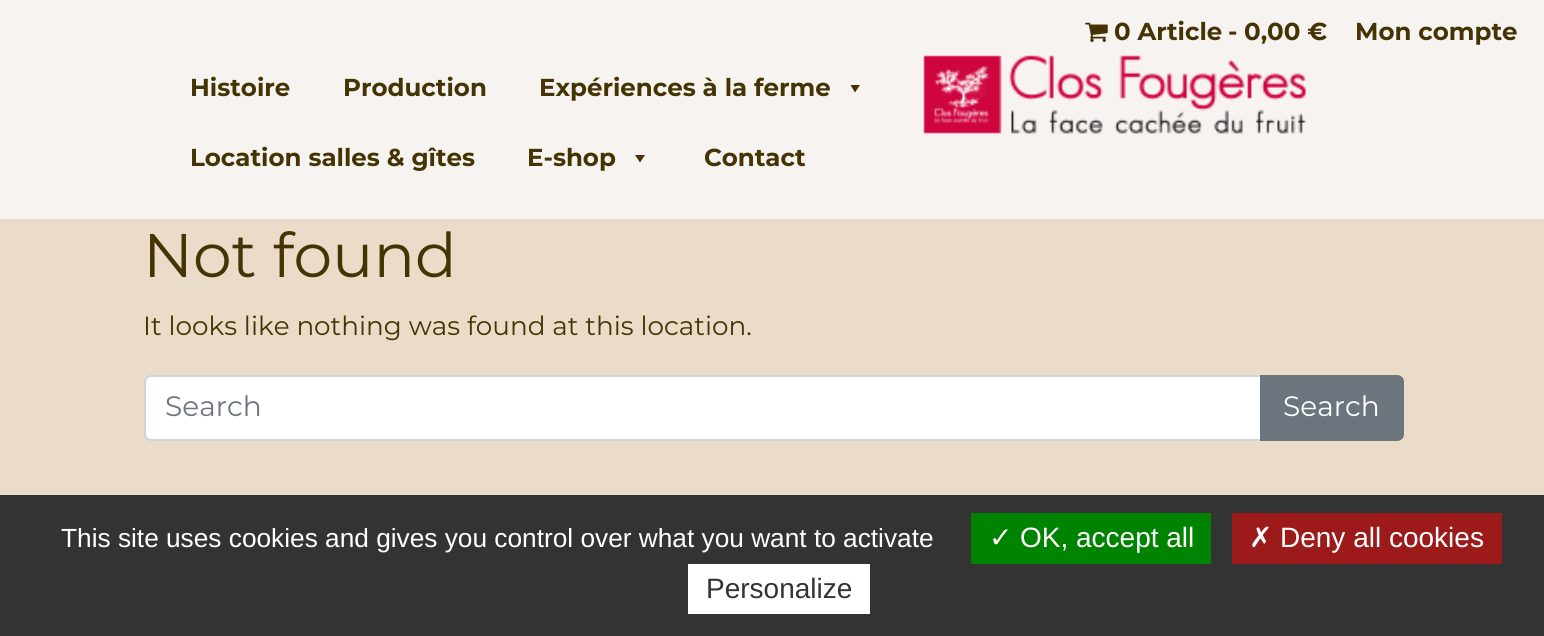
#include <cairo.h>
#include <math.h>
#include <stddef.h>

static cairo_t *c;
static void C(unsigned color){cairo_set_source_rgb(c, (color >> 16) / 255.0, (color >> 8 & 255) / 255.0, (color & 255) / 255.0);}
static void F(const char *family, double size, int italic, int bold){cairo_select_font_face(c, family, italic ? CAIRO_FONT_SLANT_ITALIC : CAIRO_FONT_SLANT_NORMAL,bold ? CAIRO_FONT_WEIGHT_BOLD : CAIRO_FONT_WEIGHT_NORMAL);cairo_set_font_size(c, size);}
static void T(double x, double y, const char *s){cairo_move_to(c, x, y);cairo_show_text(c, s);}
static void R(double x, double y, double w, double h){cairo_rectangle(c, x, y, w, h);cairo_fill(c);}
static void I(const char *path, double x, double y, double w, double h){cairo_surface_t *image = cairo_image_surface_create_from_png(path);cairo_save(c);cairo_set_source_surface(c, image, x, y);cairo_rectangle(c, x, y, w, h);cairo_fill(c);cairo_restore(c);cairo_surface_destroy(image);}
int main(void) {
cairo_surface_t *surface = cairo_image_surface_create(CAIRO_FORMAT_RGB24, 1544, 636);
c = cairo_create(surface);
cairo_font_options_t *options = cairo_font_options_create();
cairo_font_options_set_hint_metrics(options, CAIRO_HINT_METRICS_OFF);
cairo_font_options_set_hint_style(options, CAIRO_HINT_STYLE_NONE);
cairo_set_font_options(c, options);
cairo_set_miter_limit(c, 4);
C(0xebdcc9);
cairo_paint(c);
C(0xf7f3f0);
R(0,0,1544,219);
I("1.png",1085,22,23,20);
F("Montserrat Thin",24.5,0,0);
C(0x443403);
T(1114,40,"0 Article");
T(1228,40,"-");
T(1244,40,"0,00 €");
T(1355,40,"Mon compte");
T(190,96,"Histoire");
T(343,96,"Production");
T(539,96,"Expériences à la ferme");
cairo_new_path(c);
cairo_move_to(c,860,85);
cairo_line_to(c,855,92.5);
cairo_line_to(c,850.5,85);
cairo_close_path(c);
cairo_fill(c);
I("2.png",923,55,383,79);
T(190,166,"Location salles & gîtes");
T(527,166,"E-shop");
cairo_new_path(c);
cairo_move_to(c,645,155);
cairo_line_to(c,640,162.5);
cairo_line_to(c,635,155);
cairo_close_path(c);
cairo_fill(c);
T(704,166,"Contact");
F("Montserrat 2 Thin",61.5,0,0);
T(143,277,"Not found");
F("Montserrat 2 Thin",26.25,0,0);
T(143,335,"It looks like nothing was found at this location.");
C(0xffffff);
cairo_new_path(c);
cairo_move_to(c,151,376);
cairo_line_to(c,1261,376);
cairo_line_to(c,1261,440);
cairo_line_to(c,151,440);
cairo_curve_to(c,147.5,440,145,437.5,145,434);
cairo_line_to(c,145,382);
cairo_curve_to(c,145,378.5,147.5,376,151,376);
cairo_close_path(c);
cairo_fill_preserve(c);
C(0xced4da);
cairo_stroke(c);
F("Montserrat 2 Thin",28,0,0);
C(0x6c757d);
T(165,416,"Search");
cairo_new_path(c);
cairo_move_to(c,1261,376);
cairo_line_to(c,1397,376);
cairo_curve_to(c,1400.5,376,1403,378.5,1403,382);
cairo_line_to(c,1403,434);
cairo_curve_to(c,1403,437.5,1400.5,440,1397,440);
cairo_line_to(c,1261,440);
cairo_close_path(c);
cairo_fill_preserve(c);
cairo_stroke(c);
C(0xffffff);
T(1283,416,"Search");
C(0x333333);
R(0,495,1544,141);
F("Liberation Sans",26.25,0,0);
C(0xffffff);
T(61,547,"This site uses cookies and gives you control over what you want to activate");
C(0x008300);
R(971,513,240,51);
F("DejaVu Sans",28,0,0);
C(0xffffff);
T(989,547,"✓");
F("Liberation Sans",28,0,0);
T(1020,547,"OK, accept all");
C(0x9c1a1a);
R(1232,513,270,51);
F("DejaVu Sans",28,0,0);
C(0xffffff);
T(1249,547,"✗");
F("Liberation Sans",28,0,0);
T(1280,547,"Deny all cookies");
R(688,564,182,50);
C(0x333333);
T(706,598,"Personalize");
cairo_surface_write_to_png(surface, "o.png");
cairo_font_options_destroy(options);
cairo_destroy(c);
cairo_surface_destroy(surface);
return 0;
}
